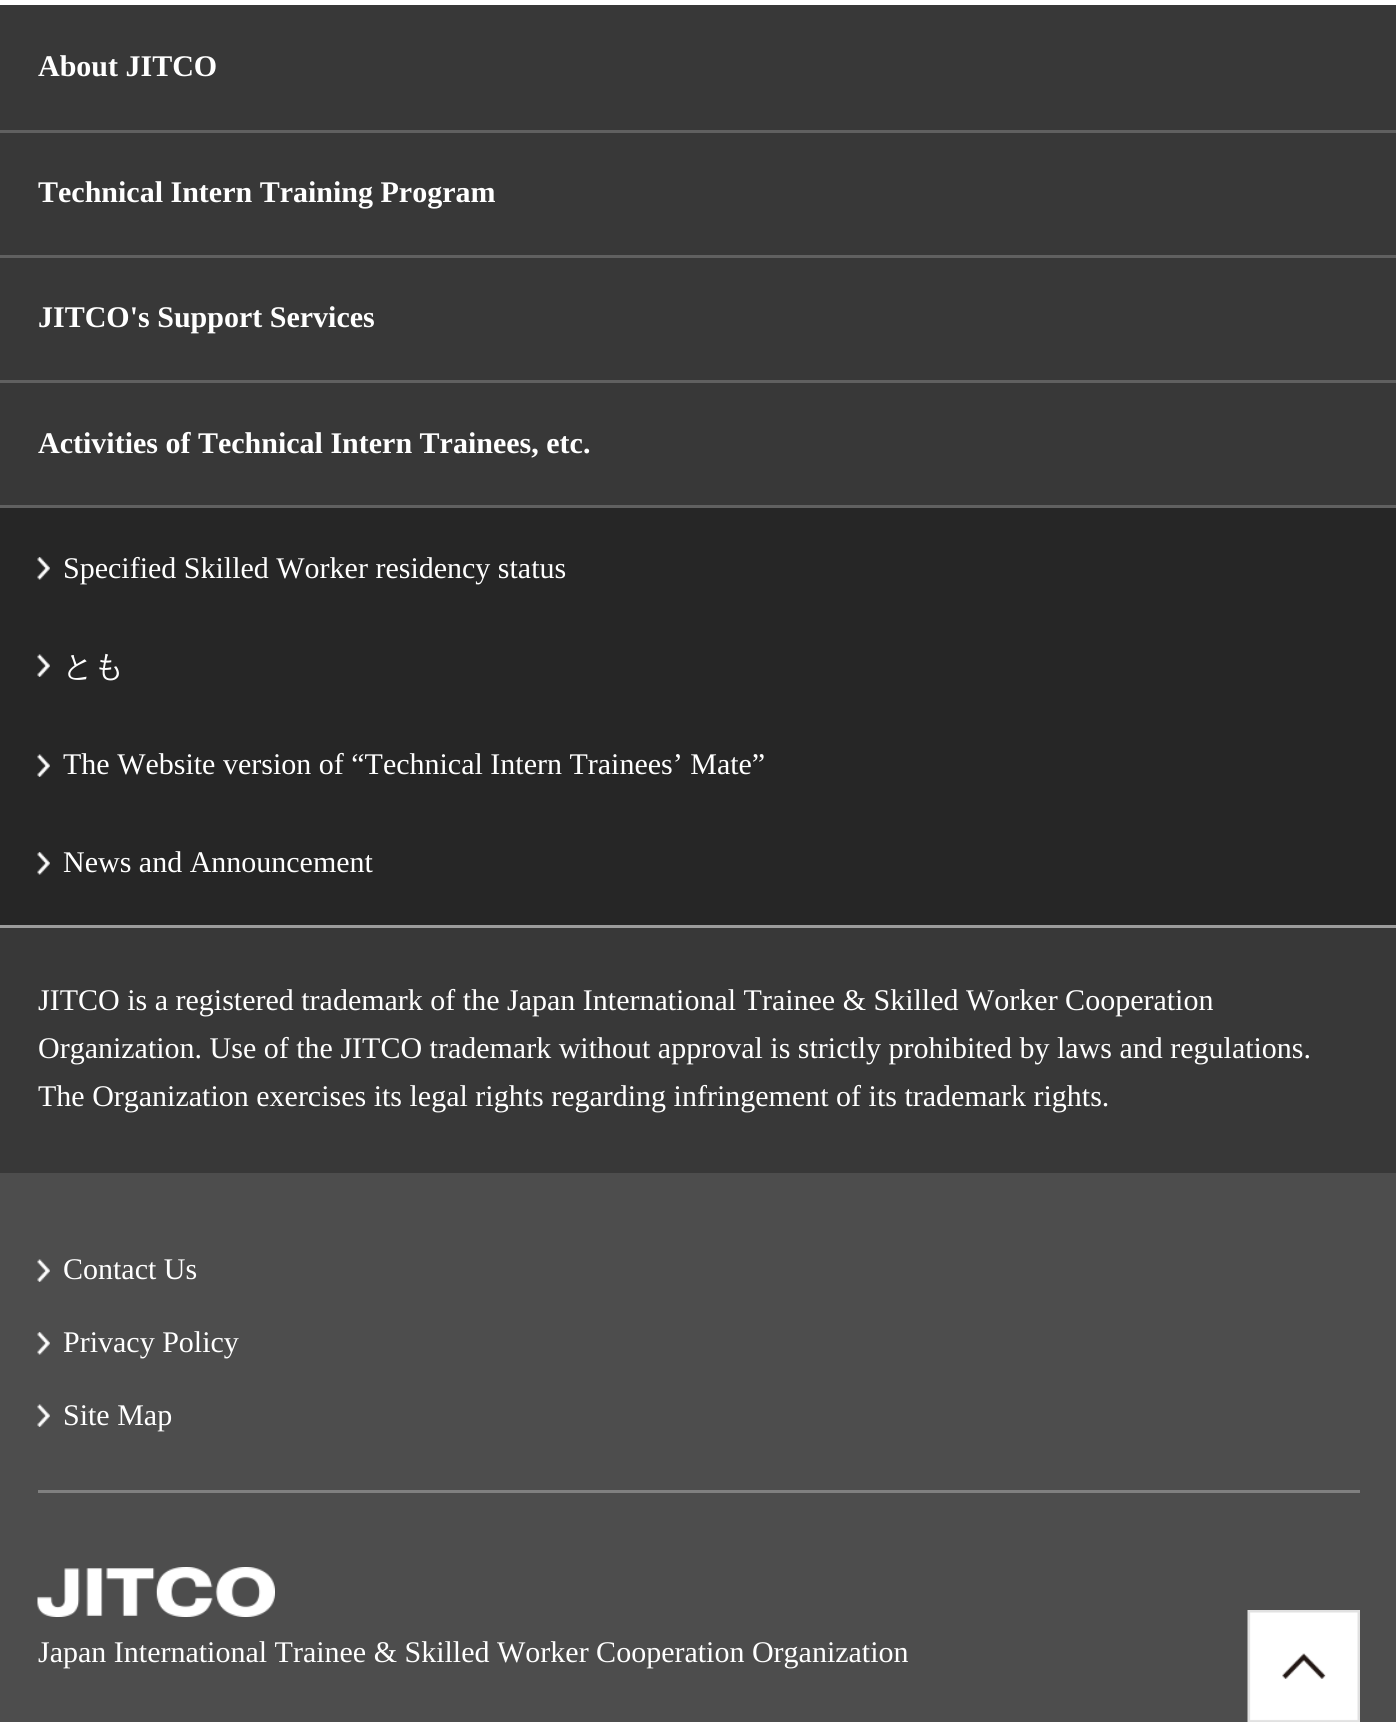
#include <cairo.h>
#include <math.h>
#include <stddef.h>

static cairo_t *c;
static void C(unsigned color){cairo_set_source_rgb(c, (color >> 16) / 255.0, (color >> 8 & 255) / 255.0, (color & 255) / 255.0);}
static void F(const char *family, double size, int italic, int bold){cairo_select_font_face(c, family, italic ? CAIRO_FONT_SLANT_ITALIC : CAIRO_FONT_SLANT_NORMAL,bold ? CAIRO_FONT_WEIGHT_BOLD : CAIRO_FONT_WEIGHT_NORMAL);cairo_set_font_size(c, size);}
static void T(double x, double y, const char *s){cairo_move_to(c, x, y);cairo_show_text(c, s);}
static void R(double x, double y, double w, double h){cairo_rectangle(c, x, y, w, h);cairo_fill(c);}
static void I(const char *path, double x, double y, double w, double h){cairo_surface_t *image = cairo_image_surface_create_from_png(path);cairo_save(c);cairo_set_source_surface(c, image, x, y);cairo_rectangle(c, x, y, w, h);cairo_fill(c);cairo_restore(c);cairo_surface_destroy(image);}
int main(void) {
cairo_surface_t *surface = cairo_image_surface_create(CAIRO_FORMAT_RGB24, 1396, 1722);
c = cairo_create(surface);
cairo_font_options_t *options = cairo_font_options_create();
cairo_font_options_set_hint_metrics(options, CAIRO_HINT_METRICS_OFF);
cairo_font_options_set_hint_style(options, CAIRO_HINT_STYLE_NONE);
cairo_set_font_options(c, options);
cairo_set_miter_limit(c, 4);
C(0xffffff);
cairo_paint(c);
C(0x383838);
R(0,5,1396,1168);
C(0x606060);
R(0,130,1396,3);
F("Liberation Serif",30,0,1);
C(0xffffff);
T(38,76,"About JITCO");
C(0x606060);
R(0,255,1396,3);
C(0xffffff);
T(38,202,"Technical Intern Training Program");
C(0x606060);
R(0,380,1396,3);
C(0xffffff);
T(38,327,"JITCO's Support Services");
C(0x606060);
R(0,505,1396,3);
C(0xffffff);
T(38,453,"Activities of Technical Intern Trainees, etc.");
C(0x262626);
R(0,508,1396,417);
C(0x9c9c9c);
R(0,925,1396,3);
I("1.png",37,557,13,23);
F("Liberation Serif",30,0,0);
C(0xffffff);
T(63,578,"Specified Skilled Worker residency status");
I("2.png",37,654,13,23);
F("WenQuanYi Zen Hei Medium",30,0,0);
T(63,676,"とも");
I("2.png",37,754,13,23);
F("Liberation Serif",30,0,0);
T(63,774,"The Website version of “Technical Intern Trainees’ Mate”");
I("1.png",37,852,13,23);
T(63,872,"News and Announcement");
T(38,1010,"JITCO is a registered trademark of the Japan International Trainee & Skilled Worker Cooperation");
T(38,1058,"Organization. Use of the JITCO trademark without approval is strictly prohibited by laws and regulations.");
T(38,1106,"The Organization exercises its legal rights regarding infringement of its trademark rights.");
C(0x4d4d4d);
R(0,1173,1396,549);
C(0x808080);
R(38,1490,1322,3);
I("3.png",37,1259,13,23);
C(0xffffff);
T(63,1279,"Contact Us");
I("4.png",37,1332,13,23);
T(63,1352,"Privacy Policy");
I("3.png",37,1404,13,23);
T(63,1425,"Site Map");
I("5.png",37,1567,238,50);
T(38,1662,"Japan International Trainee & Skilled Worker Cooperation Organization");
I("6.png",1247,1610,113,112);
cairo_surface_write_to_png(surface, "o.png");
cairo_font_options_destroy(options);
cairo_destroy(c);
cairo_surface_destroy(surface);
return 0;
}
